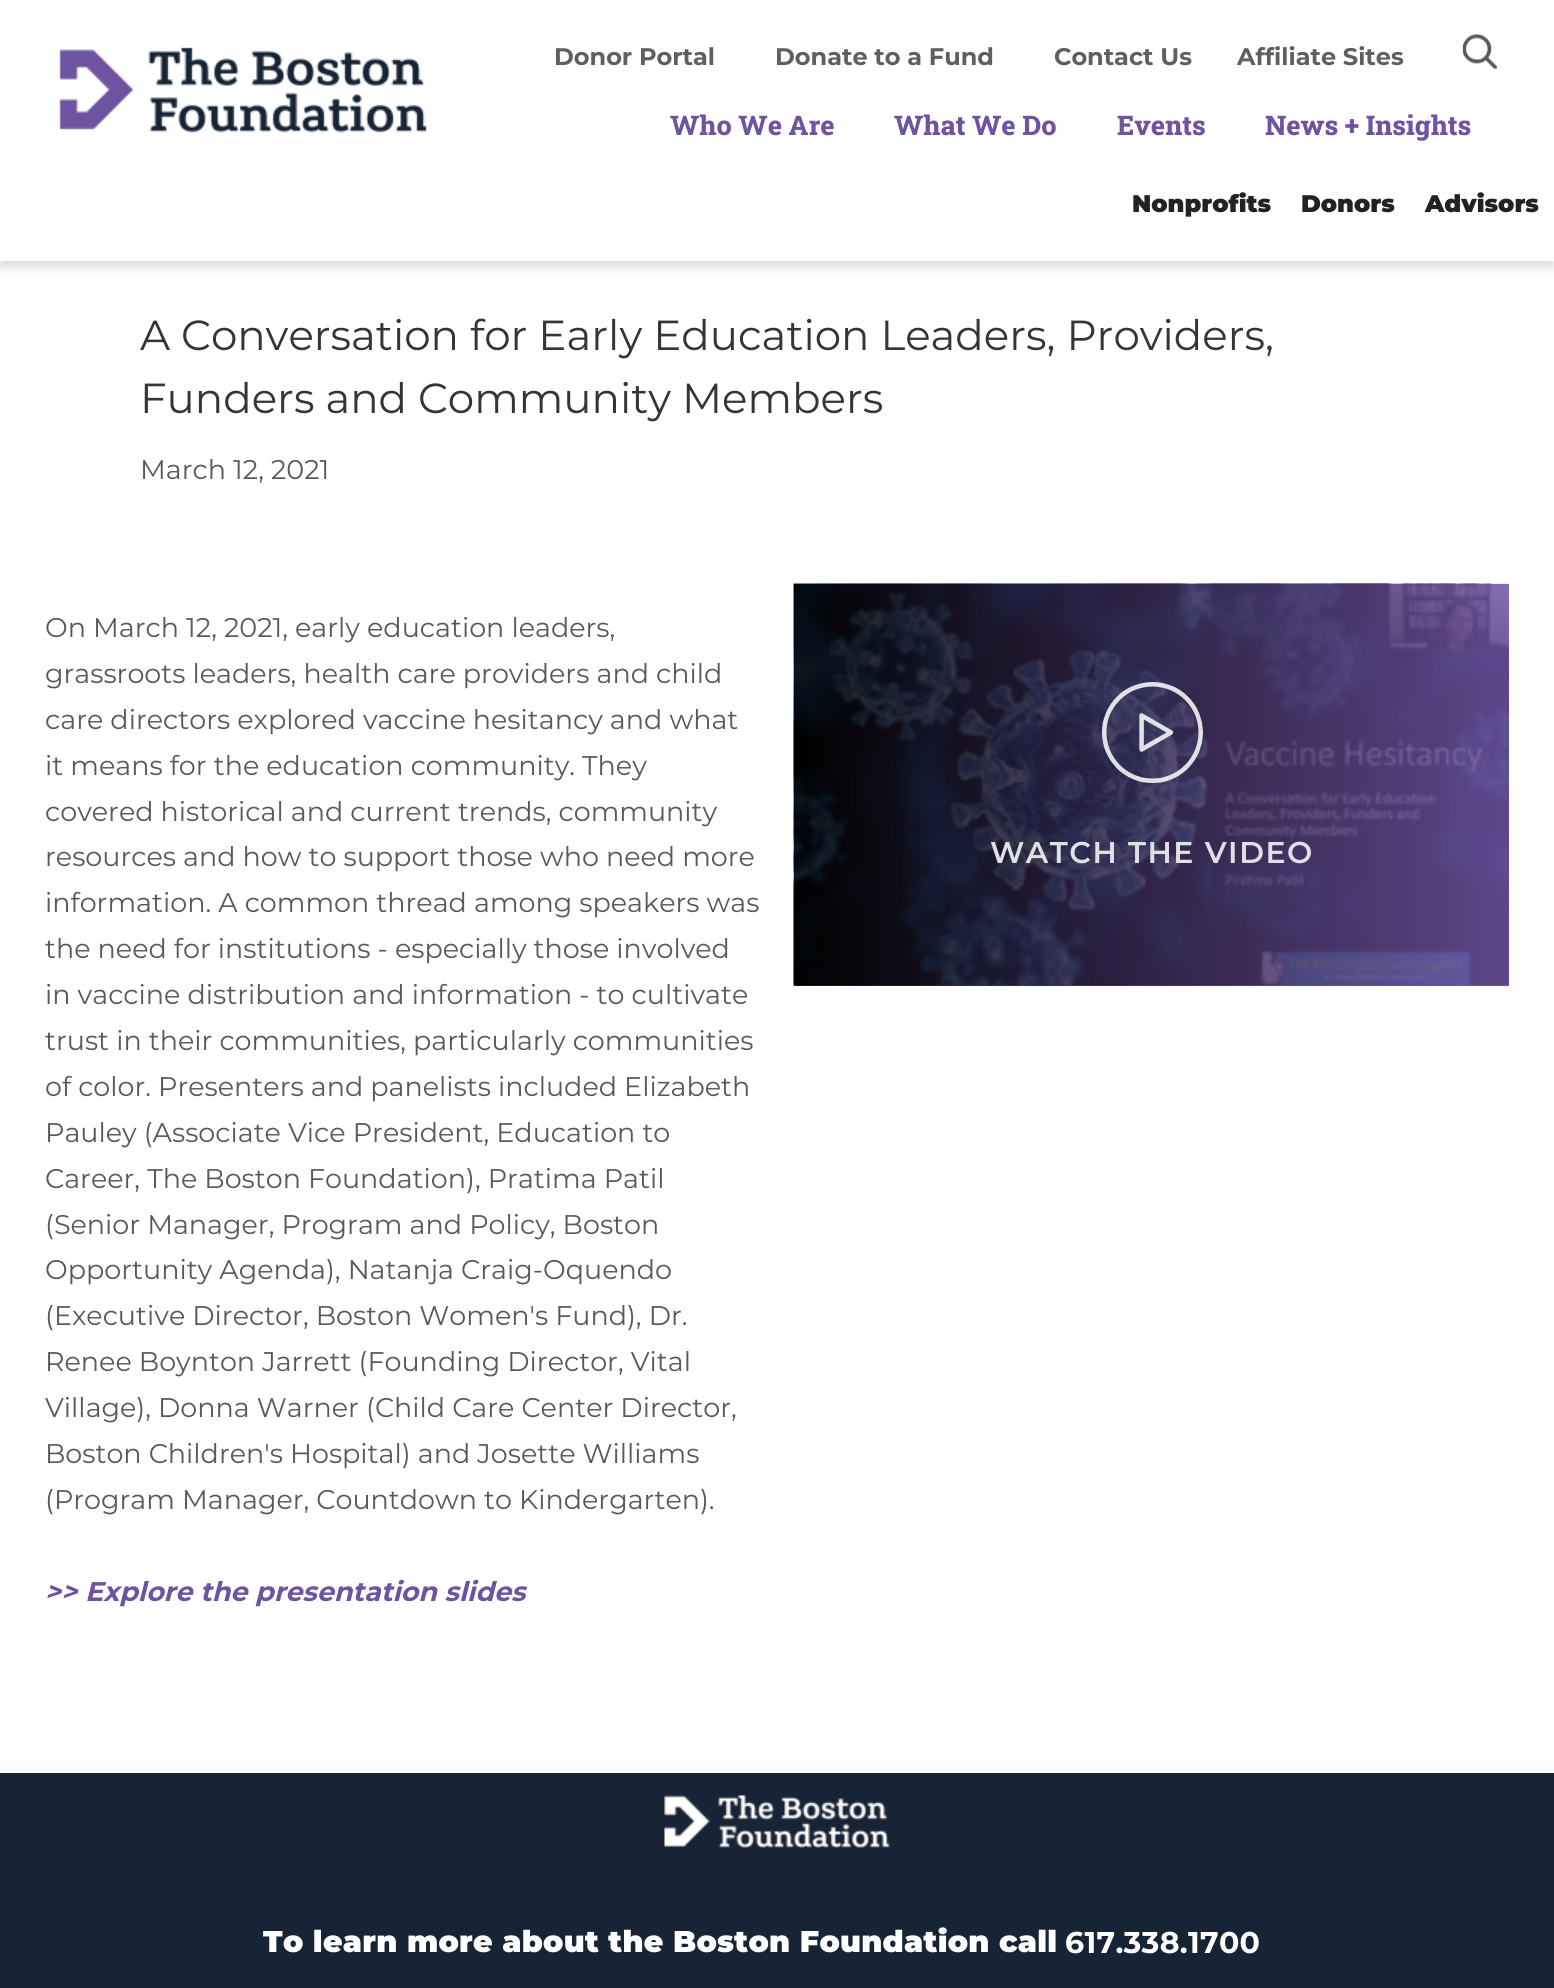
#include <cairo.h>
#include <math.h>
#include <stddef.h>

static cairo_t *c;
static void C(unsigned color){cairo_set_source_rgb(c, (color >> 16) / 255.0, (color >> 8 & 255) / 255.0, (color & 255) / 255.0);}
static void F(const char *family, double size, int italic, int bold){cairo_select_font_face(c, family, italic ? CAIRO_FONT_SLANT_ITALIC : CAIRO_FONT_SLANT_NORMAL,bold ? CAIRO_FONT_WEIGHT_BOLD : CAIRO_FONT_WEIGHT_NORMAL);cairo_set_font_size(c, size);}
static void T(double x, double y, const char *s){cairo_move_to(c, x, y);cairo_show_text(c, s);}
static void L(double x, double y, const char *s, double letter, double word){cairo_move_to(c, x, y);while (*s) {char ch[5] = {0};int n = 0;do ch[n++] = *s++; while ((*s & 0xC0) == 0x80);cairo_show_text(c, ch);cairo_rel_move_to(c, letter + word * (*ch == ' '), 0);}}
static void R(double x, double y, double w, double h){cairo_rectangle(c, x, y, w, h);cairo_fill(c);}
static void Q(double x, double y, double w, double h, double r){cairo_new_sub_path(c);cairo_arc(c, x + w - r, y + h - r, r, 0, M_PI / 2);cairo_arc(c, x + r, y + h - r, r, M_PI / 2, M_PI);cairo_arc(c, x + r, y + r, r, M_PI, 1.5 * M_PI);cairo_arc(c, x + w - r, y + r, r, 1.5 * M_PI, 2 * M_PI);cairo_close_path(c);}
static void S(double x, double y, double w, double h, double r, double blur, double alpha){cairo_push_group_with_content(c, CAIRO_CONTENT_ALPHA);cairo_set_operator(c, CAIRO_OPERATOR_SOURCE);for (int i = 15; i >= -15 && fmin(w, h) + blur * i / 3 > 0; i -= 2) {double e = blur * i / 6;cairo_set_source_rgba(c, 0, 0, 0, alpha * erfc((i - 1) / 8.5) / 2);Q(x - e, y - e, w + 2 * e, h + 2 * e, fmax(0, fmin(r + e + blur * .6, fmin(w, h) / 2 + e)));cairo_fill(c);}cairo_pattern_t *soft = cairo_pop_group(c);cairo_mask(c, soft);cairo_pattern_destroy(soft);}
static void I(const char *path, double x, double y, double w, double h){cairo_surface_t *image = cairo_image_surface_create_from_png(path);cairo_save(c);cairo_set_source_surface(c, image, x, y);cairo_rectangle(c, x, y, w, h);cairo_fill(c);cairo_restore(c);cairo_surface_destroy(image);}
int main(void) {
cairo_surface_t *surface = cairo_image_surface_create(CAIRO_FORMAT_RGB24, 1554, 1988);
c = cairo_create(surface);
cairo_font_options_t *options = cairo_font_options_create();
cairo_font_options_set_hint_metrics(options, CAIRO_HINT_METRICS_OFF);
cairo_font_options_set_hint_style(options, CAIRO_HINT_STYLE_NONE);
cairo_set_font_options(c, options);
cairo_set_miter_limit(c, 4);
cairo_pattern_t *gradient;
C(0xffffff);
cairo_paint(c);
C(0x000000);
S(0,6,1554,261,0,6,.15);
C(0xffffff);
R(0,0,1554,261);
I("1.png",59,47,368,86);
F("Montserrat",24,0,1);
C(0x5f5f5f);
T(554,65,"Donor Portal");
T(775,65,"Donate to a Fund");
T(1054,65,"Contact Us");
T(1237,65,"Affiliate Sites");
I("2.png",1462,34,35,36);
F("Roboto Slab ExtraBold",27,0,0);
C(0x6e53a1);
T(670,135,"Who We Are");
T(894,135,"What We Do");
T(1117,135,"Events");
T(1265,135,"News + Insights");
F("Montserrat Black",24,0,0);
C(0x222222);
T(1132,212,"Nonprofits");
T(1301,212,"Donors");
T(1425,212,"Advisors");
F("Montserrat",42,0,0);
C(0x353531);
T(140,350,"A Conversation for Early Education Leaders, Providers,");
T(140,413,"Funders and Community Members");
F("Montserrat",27,0,0);
C(0x595956);
T(140,479,"March 12, 2021");
T(45,637,"On March 12, 2021, early education leaders,");
T(45,683,"grassroots leaders, health care providers and child");
T(45,729,"care directors explored vaccine hesitancy and what");
T(45,775,"it means for the education community. They");
T(45,821,"covered historical and current trends, community");
T(45,866,"resources and how to support those who need more");
T(45,912,"information. A common thread among speakers was");
T(45,958,"the need for institutions - especially those involved");
T(45,1004,"in vaccine distribution and information - to cultivate");
T(45,1050,"trust in their communities, particularly communities");
T(45,1096,"of color. Presenters and panelists included Elizabeth");
T(45,1142,"Pauley (Associate Vice President, Education to");
T(45,1188,"Career, The Boston Foundation), Pratima Patil");
T(45,1234,"(Senior Manager, Program and Policy, Boston");
T(45,1279,"Opportunity Agenda), Natanja Craig-Oquendo");
T(45,1325,"(Executive Director, Boston Women's Fund), Dr.");
T(45,1371,"Renee Boynton Jarrett (Founding Director, Vital");
T(45,1417,"Village), Donna Warner (Child Care Center Director,");
T(45,1463,"Boston Children's Hospital) and Josette Williams");
T(45,1509,"(Program Manager, Countdown to Kindergarten).");
F("Montserrat",27,1,1);
C(0x6e53a1);
T(45,1601,">> Explore the presentation slides");
I("3.png",793,583,716,403);
I("4.png",793,583,716,403);
gradient = cairo_pattern_create_linear(794,785,1509,785);
cairo_pattern_add_color_stop_rgba(gradient,0,0,0,0,.85);
cairo_pattern_add_color_stop_rgba(gradient,1,0.431,0.325,0.631,.85);
cairo_set_source(c,gradient);
cairo_pattern_destroy(gradient);
R(794,584,715,402);
I("5.png",1102,682,101,101);
F("Montserrat SemiBold",30,0,0);
C(0xe1e0e5);
L(990,863,"WATCH THE VIDEO",1.5,0);
C(0x162435);
R(0,1773,1554,215);
I("6.png",664,1795,226,53);
F("Montserrat Black",30,0,0);
C(0xffffff);
L(263,1952,"To learn more about the Boston Foundation call",.3,0);
F("Montserrat",30,0,1);
L(1065,1953,"617.338.1700",.3,0);
cairo_surface_write_to_png(surface, "o.png");
cairo_font_options_destroy(options);
cairo_destroy(c);
cairo_surface_destroy(surface);
return 0;
}
